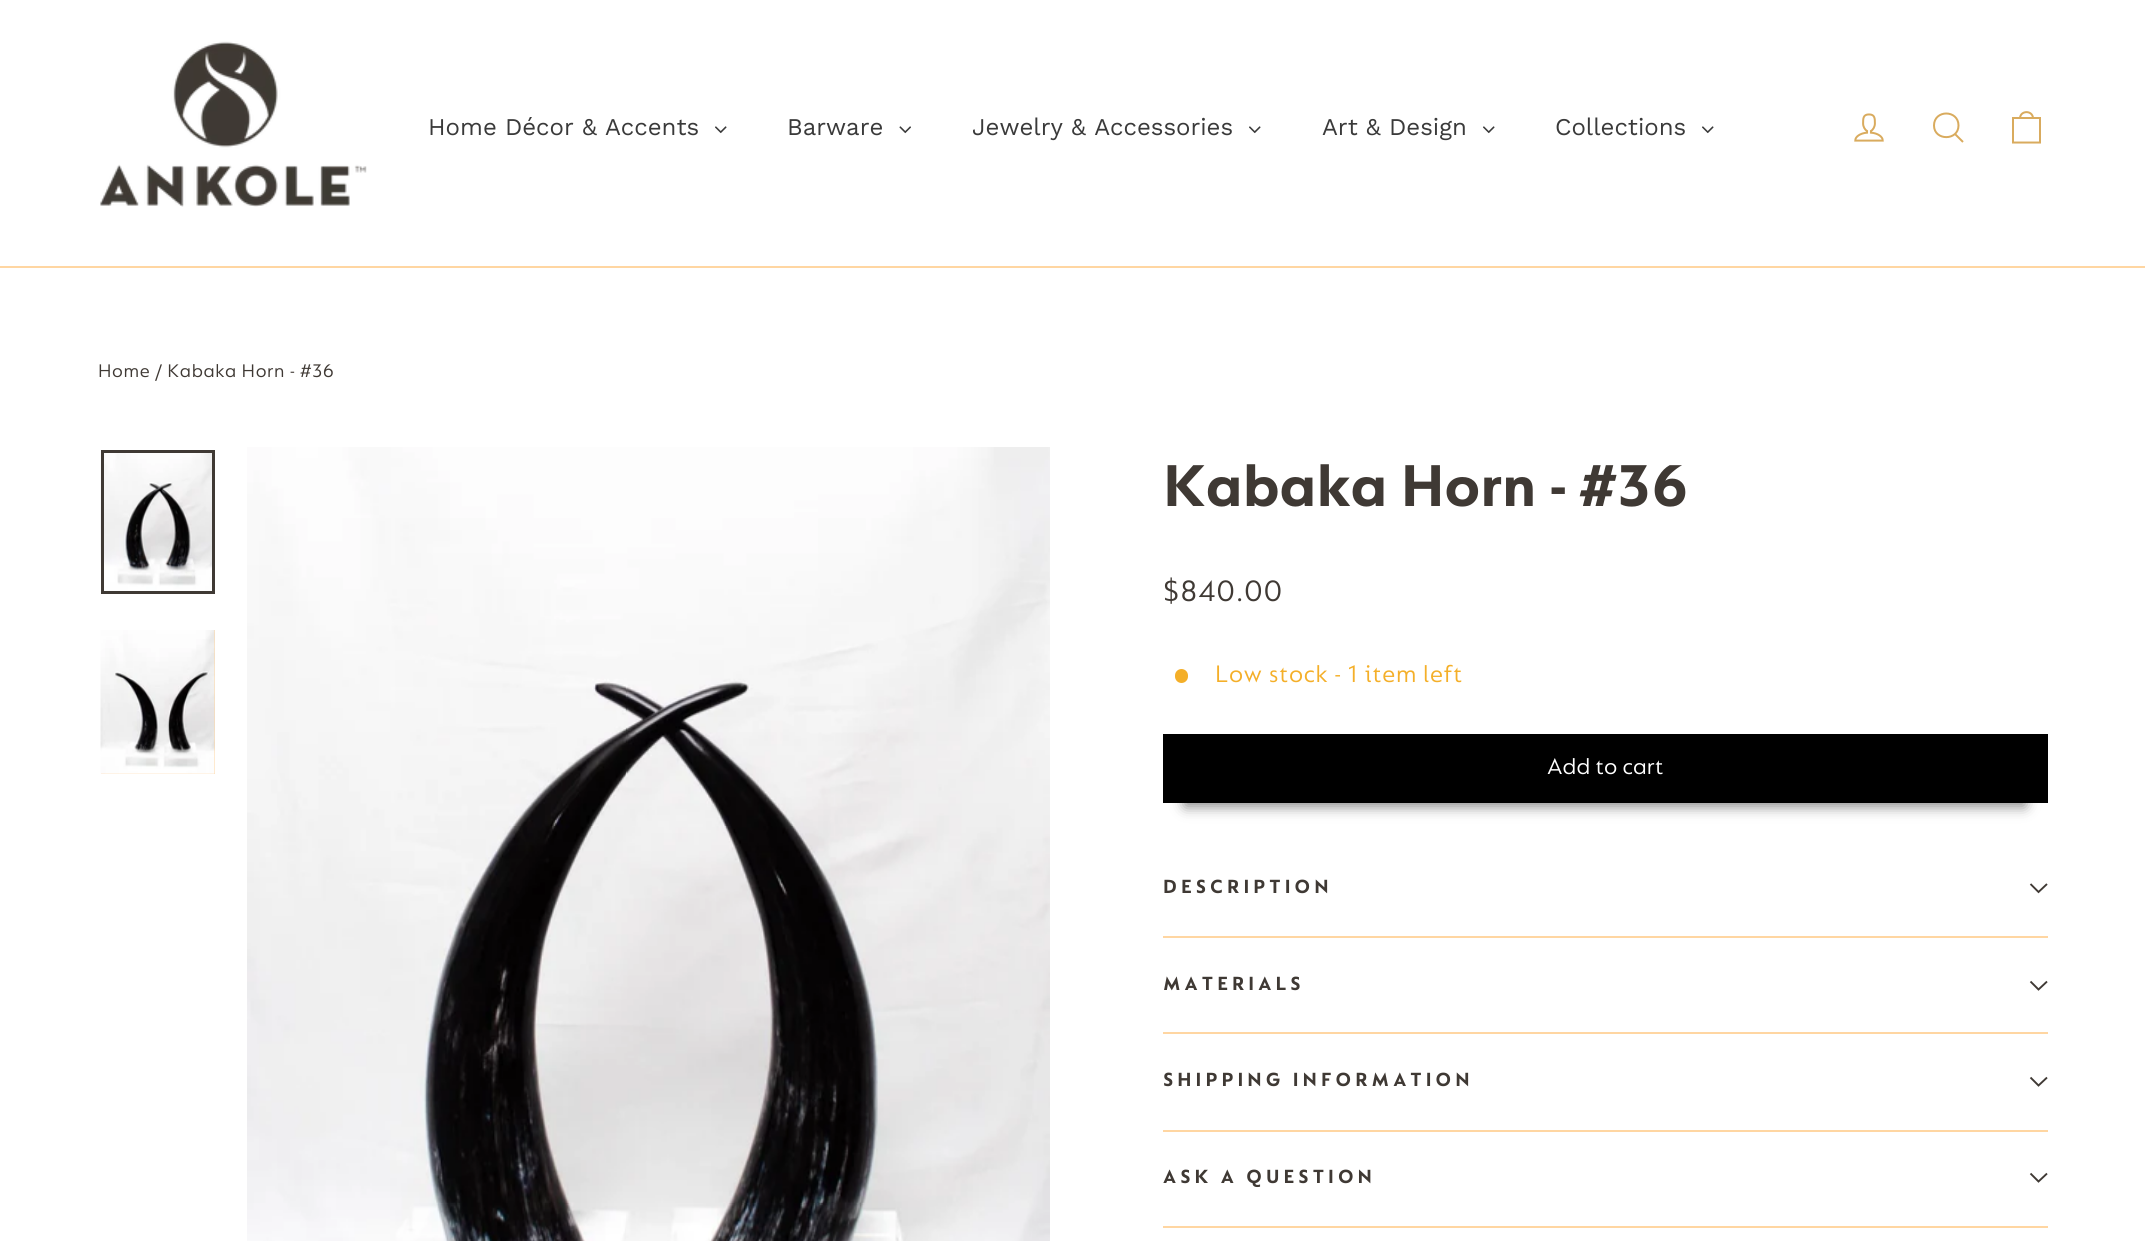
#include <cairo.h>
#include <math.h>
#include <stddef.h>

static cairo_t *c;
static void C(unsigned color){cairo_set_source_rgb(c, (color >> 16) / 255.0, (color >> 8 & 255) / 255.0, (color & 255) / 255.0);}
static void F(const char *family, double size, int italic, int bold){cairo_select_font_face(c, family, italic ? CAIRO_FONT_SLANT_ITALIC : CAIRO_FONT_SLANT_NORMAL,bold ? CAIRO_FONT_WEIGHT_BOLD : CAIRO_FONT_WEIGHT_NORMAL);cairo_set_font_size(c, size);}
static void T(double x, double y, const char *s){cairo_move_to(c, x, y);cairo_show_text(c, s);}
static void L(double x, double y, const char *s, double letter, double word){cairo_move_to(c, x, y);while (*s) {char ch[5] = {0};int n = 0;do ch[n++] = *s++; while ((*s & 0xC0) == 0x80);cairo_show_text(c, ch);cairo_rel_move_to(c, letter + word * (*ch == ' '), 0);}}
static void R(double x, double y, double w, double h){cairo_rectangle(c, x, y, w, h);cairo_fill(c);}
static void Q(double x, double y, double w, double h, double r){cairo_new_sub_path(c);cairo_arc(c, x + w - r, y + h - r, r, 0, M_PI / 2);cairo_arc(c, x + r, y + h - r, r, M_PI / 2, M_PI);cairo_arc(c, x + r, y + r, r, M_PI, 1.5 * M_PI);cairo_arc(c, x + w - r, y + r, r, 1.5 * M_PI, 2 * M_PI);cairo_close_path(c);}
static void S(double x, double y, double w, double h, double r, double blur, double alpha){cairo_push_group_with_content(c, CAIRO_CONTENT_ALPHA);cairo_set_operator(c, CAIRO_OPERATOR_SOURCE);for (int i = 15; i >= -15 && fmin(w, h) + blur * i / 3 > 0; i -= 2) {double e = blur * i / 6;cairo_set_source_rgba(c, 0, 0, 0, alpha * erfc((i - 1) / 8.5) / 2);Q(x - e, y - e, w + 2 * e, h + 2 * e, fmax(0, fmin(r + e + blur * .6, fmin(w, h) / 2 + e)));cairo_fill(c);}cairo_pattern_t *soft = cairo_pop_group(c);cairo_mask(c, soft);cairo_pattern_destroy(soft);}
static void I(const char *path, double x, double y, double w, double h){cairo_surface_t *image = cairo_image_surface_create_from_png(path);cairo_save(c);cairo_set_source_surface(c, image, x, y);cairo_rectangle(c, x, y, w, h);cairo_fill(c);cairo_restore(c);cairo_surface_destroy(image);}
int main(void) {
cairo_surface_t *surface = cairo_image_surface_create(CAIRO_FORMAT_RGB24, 2145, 1241);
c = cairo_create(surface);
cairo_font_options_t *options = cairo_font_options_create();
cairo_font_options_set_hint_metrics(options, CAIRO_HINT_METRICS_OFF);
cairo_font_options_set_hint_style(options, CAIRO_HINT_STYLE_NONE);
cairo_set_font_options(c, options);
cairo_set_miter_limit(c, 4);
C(0xffffff);
cairo_paint(c);
C(0xffd6a2);
R(0,266,2145,2);
I("1.png",100,41,267,166);
F("Work Sans",24,0,0);
C(0x3a3a3a);
T(428,135,"Home Décor & Accents");
I("2.png",715,126,12,8);
T(787,135,"Barware");
I("3.png",899,126,12,8);
T(972,135,"Jewelry & Accessories");
I("2.png",1249,126,12,8);
T(1322,135,"Art & Design");
I("2.png",1483,126,12,8);
T(1555,135,"Collections");
I("2.png",1702,126,12,8);
I("4.png",1854,113,30,29);
cairo_new_path(c);
cairo_move_to(c,1958.5,125.5);
cairo_curve_to(c,1958.5,141,1934,141,1934,125.5);
cairo_curve_to(c,1934,109.5,1958.5,109.5,1958.5,125.5);
cairo_close_path(c);
cairo_move_to(c,1963,142);
cairo_line_to(c,1955,134);
C(0xd9ab5e);
cairo_stroke(c);
cairo_new_path(c);
cairo_move_to(c,2013,118);
cairo_line_to(c,2040,118);
cairo_line_to(c,2040,142.5);
cairo_line_to(c,2013,142.5);
cairo_close_path(c);
cairo_move_to(c,2020,118.5);
cairo_curve_to(c,2020,110,2033,110,2033,118.5);
cairo_stroke(c);
F("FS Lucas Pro",19.5,0,0);
C(0x3f3934);
L(98,377,"Home / Kabaka Horn - #36",.6,0);
I("5.png",100,450,112,144);
cairo_rectangle(c,102.5,451.5,111,141);
cairo_set_line_width(c,3);
cairo_stroke(c);
C(0xffd6a2);
R(101,630,114,144);
I("6.png",100,630,115,144);
I("7.png",247,447,803,794);
F("FS Lucas Pro",63,0,1);
C(0x3f3934);
T(1163,506,"Kabaka Horn - #36");
F("FS Lucas Pro",31.5,0,0);
L(1163,601,"$840.00",.6,0);
C(0xf4af29);
Q(1175,669,13,14,6.5);
cairo_fill(c);
F("FS Lucas Pro",25.5,0,0);
L(1215,682,"Low stock - 1 item left",.6,0);
C(0x000000);
S(1185,782,840,24,0,7,.5);
C(0x000000);
R(1163,734,885,69);
F("FS Lucas Pro",24,0,0);
C(0xffffff);
T(1547,774,"Add to cart");
C(0xffd6a2);
R(1163,936,885,2);
F("FS Lucas Pro",20.4,0,1);
C(0x3f3934);
L(1163,893,"DESCRIPTION",4.1,0);
cairo_new_path(c);
cairo_move_to(c,2030.5,884);
cairo_line_to(c,2038.5,892);
cairo_line_to(c,2047,884);
cairo_set_line_width(c,1.9);
cairo_stroke(c);
C(0xffd6a2);
R(1163,1032,885,2);
C(0x3f3934);
L(1163,990,"MATERIALS",4.1,0);
cairo_new_path(c);
cairo_move_to(c,2030.5,981.5);
cairo_line_to(c,2038.5,989.5);
cairo_line_to(c,2047,981.5);
cairo_stroke(c);
C(0xffd6a2);
R(1163,1130,885,2);
C(0x3f3934);
L(1163,1086,"SHIPPING INFORMATION",4.1,0);
cairo_new_path(c);
cairo_move_to(c,2030.5,1077.5);
cairo_line_to(c,2038.5,1085.5);
cairo_line_to(c,2047,1077.5);
cairo_stroke(c);
C(0xffd6a2);
R(1163,1226,885,2);
C(0x3f3934);
L(1163,1183,"ASK A QUESTION",4.1,0);
cairo_new_path(c);
cairo_move_to(c,2030.5,1173.5);
cairo_line_to(c,2038.5,1181.5);
cairo_line_to(c,2047,1173.5);
cairo_stroke(c);
cairo_surface_write_to_png(surface, "o.png");
cairo_font_options_destroy(options);
cairo_destroy(c);
cairo_surface_destroy(surface);
return 0;
}
